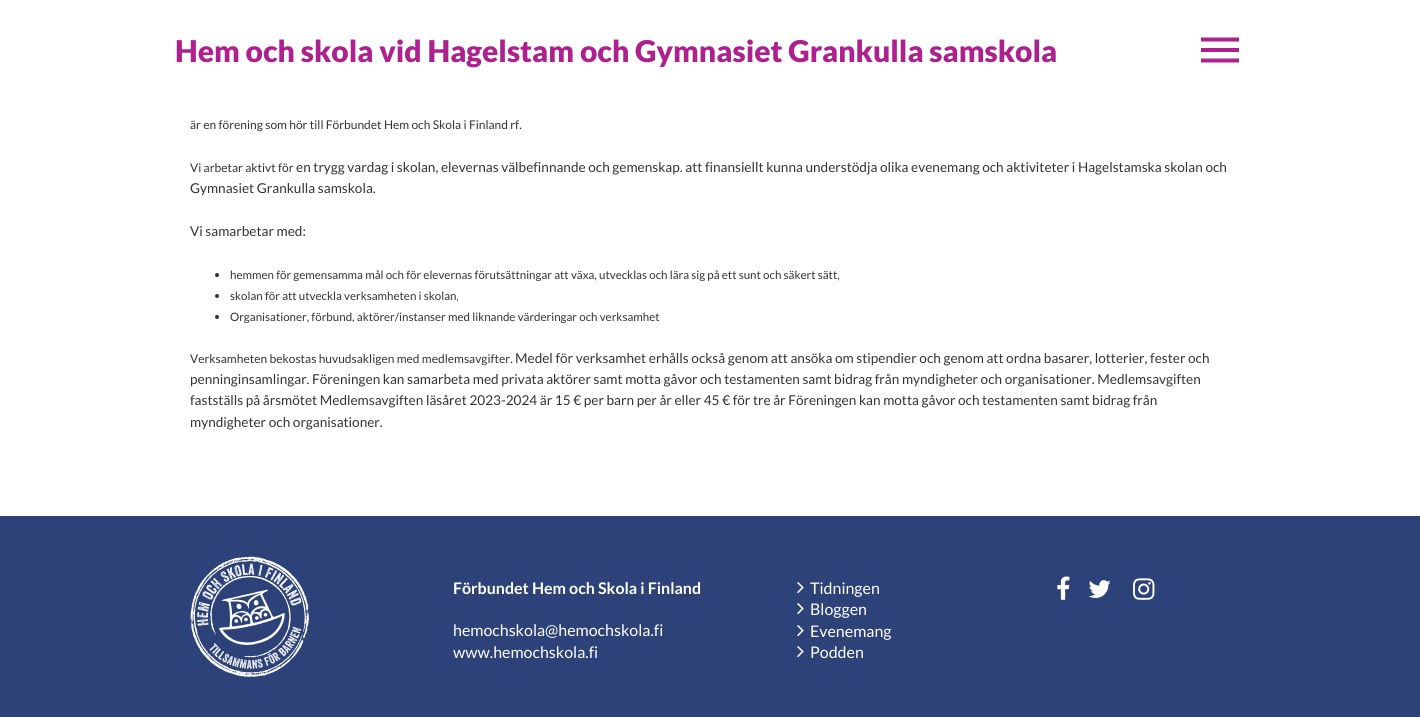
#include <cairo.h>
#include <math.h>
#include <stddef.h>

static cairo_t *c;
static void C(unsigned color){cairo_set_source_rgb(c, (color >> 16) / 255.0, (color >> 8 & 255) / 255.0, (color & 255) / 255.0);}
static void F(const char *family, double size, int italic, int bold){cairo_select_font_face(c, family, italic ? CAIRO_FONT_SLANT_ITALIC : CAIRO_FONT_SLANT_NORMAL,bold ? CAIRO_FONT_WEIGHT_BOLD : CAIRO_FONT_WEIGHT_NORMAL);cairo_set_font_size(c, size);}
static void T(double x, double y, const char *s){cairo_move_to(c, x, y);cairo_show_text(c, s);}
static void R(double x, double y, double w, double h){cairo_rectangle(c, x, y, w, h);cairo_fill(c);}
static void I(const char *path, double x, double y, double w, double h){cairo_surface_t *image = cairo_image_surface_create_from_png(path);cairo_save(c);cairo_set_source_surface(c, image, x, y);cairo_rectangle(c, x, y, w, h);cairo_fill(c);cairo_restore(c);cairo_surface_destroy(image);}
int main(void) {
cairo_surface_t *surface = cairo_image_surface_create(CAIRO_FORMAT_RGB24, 1420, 717);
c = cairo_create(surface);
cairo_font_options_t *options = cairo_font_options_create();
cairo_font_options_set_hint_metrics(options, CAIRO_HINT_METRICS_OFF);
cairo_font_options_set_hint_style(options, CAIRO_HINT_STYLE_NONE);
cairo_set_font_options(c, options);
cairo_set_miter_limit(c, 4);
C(0xffffff);
cairo_paint(c);
F("Lato Black",30,0,0);
C(0xad208e);
T(175,62,"Hem och skola vid Hagelstam och Gymnasiet Grankulla samskola");
cairo_new_path(c);
cairo_move_to(c,1201,37.5);
cairo_line_to(c,1239,37.5);
cairo_line_to(c,1239,41.5);
cairo_line_to(c,1201,41.5);
cairo_close_path(c);
cairo_move_to(c,1201,52);
cairo_line_to(c,1201,48);
cairo_line_to(c,1239,48);
cairo_line_to(c,1239,52);
cairo_close_path(c);
cairo_move_to(c,1201,62.5);
cairo_line_to(c,1201,58.5);
cairo_line_to(c,1239,58.5);
cairo_line_to(c,1239,62.5);
cairo_close_path(c);
cairo_fill(c);
F("Lato",12,0,0);
C(0x333333);
T(190,129,"är en förening som hör till Förbundet Hem och Skola i Finland rf.");
T(190,172,"Vi arbetar aktivt för");
F("Lato",13.6,0,0);
T(296,172,"en trygg vardag i skolan, elevernas välbefinnande och gemenskap. att finansiellt kunna understödja olika evenemang och aktiviteter i Hagelstamska skolan och");
T(190,193,"Gymnasiet Grankulla samskola.");
T(190,236,"Vi samarbetar med:");
cairo_new_path(c);
cairo_arc(c,217,275,2,0,2 * M_PI);
cairo_fill(c);
F("Lato",11.55,0,0);
T(230,279,"hemmen för gemensamma mål och för elevernas förutsättningar att växa, utvecklas och lära sig på ett sunt och säkert sätt,");
cairo_new_path(c);
cairo_arc(c,217,296,2,0,2 * M_PI);
cairo_fill(c);
T(230,300,"skolan för att utveckla verksamheten i skolan,");
cairo_new_path(c);
cairo_arc(c,217,317,2,0,2 * M_PI);
cairo_fill(c);
T(230,321,"Organisationer, förbund, aktörer/instanser med liknande värderingar och verksamhet");
F("Lato",12,0,0);
T(190,363,"Verksamheten bekostas huvudsakligen med medlemsavgifter.");
F("Lato",13.6,0,0);
T(515,363,"Medel för verksamhet erhålls också genom att ansöka om stipendier och genom att ordna basarer, lotterier, fester och");
T(190,384,"penninginsamlingar. Föreningen kan samarbeta med privata aktörer samt motta gåvor och testamenten samt bidrag från myndigheter och organisationer. Medlemsavgiften");
T(190,405,"fastställs på årsmötet Medlemsavgiften läsåret 2023-2024 är 15 € per barn per år eller 45 € för tre år Föreningen kan motta gåvor och testamenten samt bidrag från");
T(190,427,"myndigheter och organisationer.");
C(0x2d4278);
R(0,516,1420,201);
I("1.png",190,556,119,121);
F("Lato",16,0,1);
C(0xffffff);
T(453,594,"Förbundet Hem och Skola i Finland");
F("Lato",16,0,0);
T(453,636,"hemochskola@hemochskola.fi");
T(453,658,"www.hemochskola.fi");
I("2.png",797,582,7,12);
T(810,594,"Tidningen");
I("2.png",797,603,7,12);
T(810,615,"Bloggen");
I("2.png",797,625,7,12);
T(810,637,"Evenemang");
I("2.png",797,646,7,12);
T(810,658,"Podden");
I("3.png",1057,576,13,24);
I("4.png",1088,580,23,18);
I("5.png",1133,578,22,22);
cairo_surface_write_to_png(surface, "o.png");
cairo_font_options_destroy(options);
cairo_destroy(c);
cairo_surface_destroy(surface);
return 0;
}
